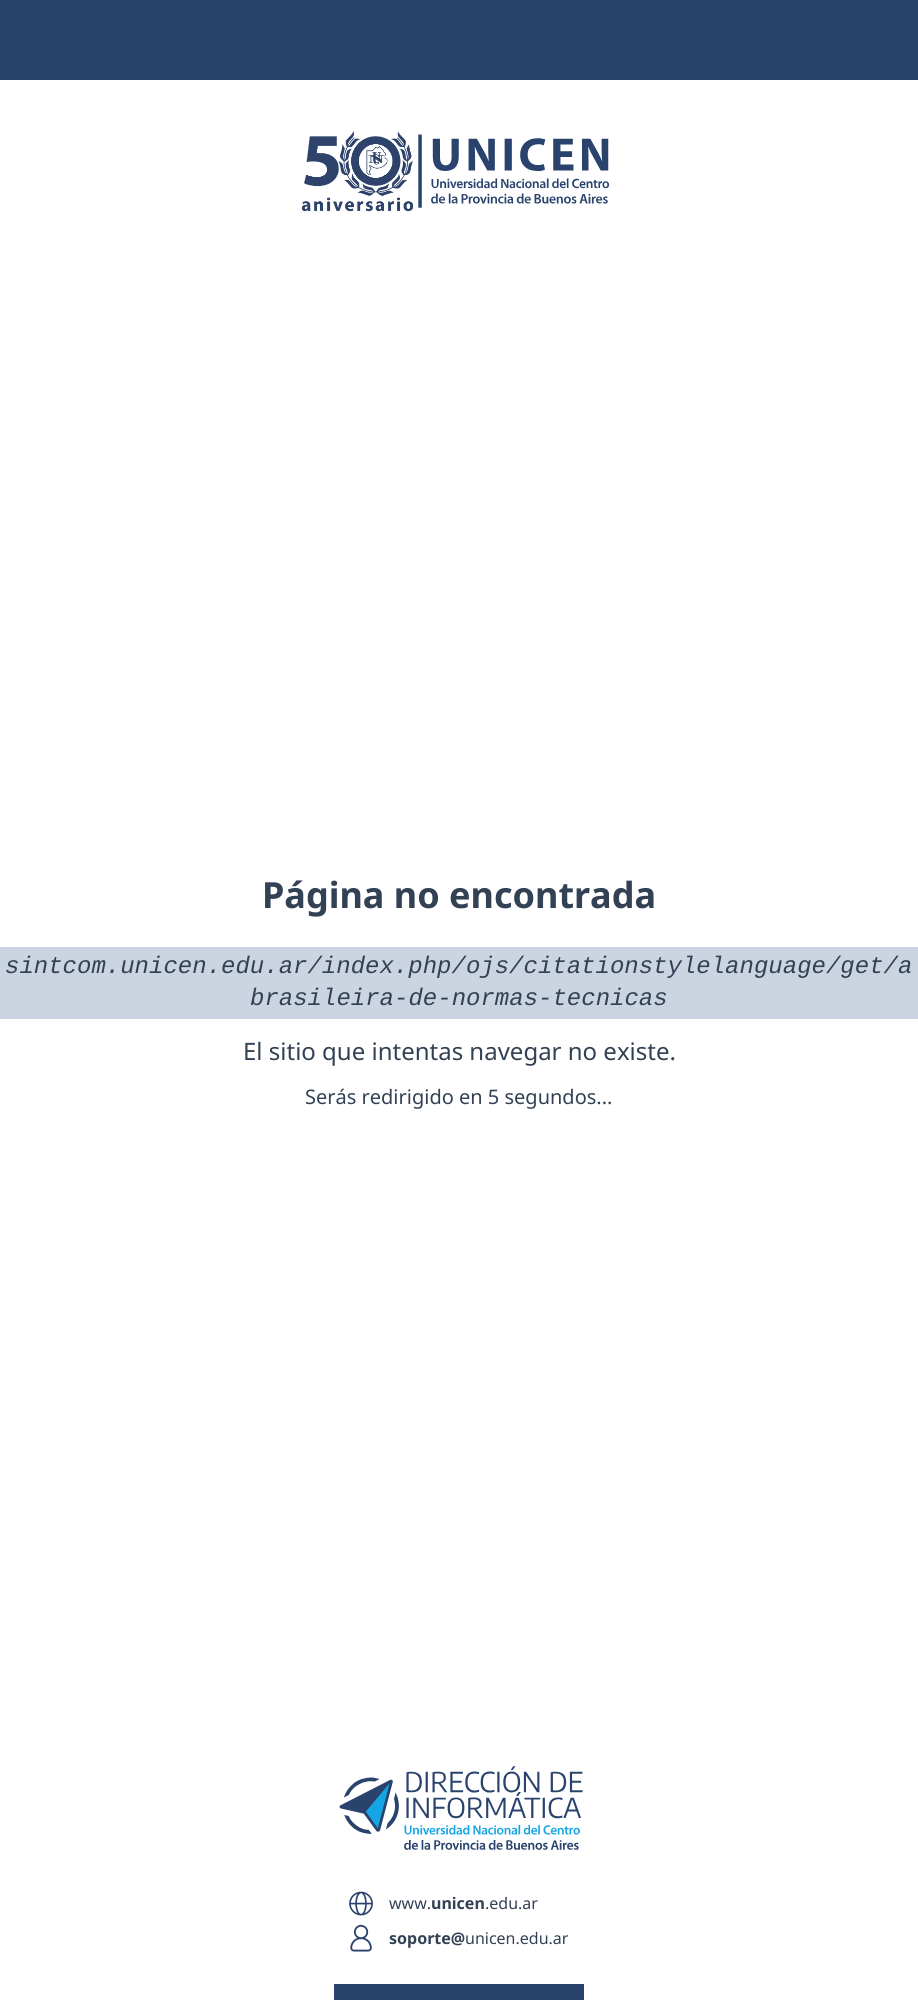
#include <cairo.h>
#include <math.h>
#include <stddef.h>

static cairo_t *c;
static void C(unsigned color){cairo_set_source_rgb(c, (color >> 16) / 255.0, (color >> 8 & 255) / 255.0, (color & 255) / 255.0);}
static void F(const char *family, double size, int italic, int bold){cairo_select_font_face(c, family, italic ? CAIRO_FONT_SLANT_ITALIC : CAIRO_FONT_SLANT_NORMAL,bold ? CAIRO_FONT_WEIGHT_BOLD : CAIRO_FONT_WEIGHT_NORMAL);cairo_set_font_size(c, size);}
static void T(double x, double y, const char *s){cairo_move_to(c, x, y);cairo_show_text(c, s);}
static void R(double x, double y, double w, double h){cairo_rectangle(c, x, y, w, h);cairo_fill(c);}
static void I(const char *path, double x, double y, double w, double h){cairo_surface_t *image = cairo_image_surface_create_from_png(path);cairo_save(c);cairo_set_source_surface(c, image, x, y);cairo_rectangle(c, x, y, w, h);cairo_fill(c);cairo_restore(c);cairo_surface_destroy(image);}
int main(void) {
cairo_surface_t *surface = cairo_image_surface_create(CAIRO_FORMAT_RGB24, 918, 2000);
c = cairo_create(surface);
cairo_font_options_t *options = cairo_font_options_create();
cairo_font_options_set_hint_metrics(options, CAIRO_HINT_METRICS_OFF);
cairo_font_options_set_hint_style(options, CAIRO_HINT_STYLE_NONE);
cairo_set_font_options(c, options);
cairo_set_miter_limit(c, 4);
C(0xffffff);
cairo_paint(c);
C(0x29436d);
R(0,0,918,80);
I("1.png",301,131,309,81);
F("Noto Sans",36,0,1);
C(0x334155);
T(262,908,"Página no encontrada");
C(0xcbd5e1);
R(0,947,918,72);
F("Liberation Mono",24,1,0);
C(0x334155);
T(5,973,"sintcom.unicen.edu.ar/index.php/ojs/citationstylelanguage/get/a");
T(250,1005,"brasileira-de-normas-tecnicas");
F("Noto Sans",24,0,0);
T(243,1060,"El sitio que intentas navegar no existe.");
F("Noto Sans",20,0,0);
T(305,1104,"Serás redirigido en 5 segundos...");
I("2.png",339,1766,244,84);
I("3.png",349,1891,24,25);
F("Noto Sans",16,0,0);
T(389,1909,"www.");
F("Noto Sans",16,0,1);
T(431,1909,"unicen");
F("Noto Sans",16,0,0);
T(485,1909,".edu.ar");
I("4.png",350,1924,22,28);
F("Noto Sans",16,0,1);
T(389,1944,"soporte@");
F("Noto Sans",16,0,0);
T(465,1944,"unicen.edu.ar");
C(0x29436d);
R(334,1984,250,16);
cairo_surface_write_to_png(surface, "o.png");
cairo_font_options_destroy(options);
cairo_destroy(c);
cairo_surface_destroy(surface);
return 0;
}
